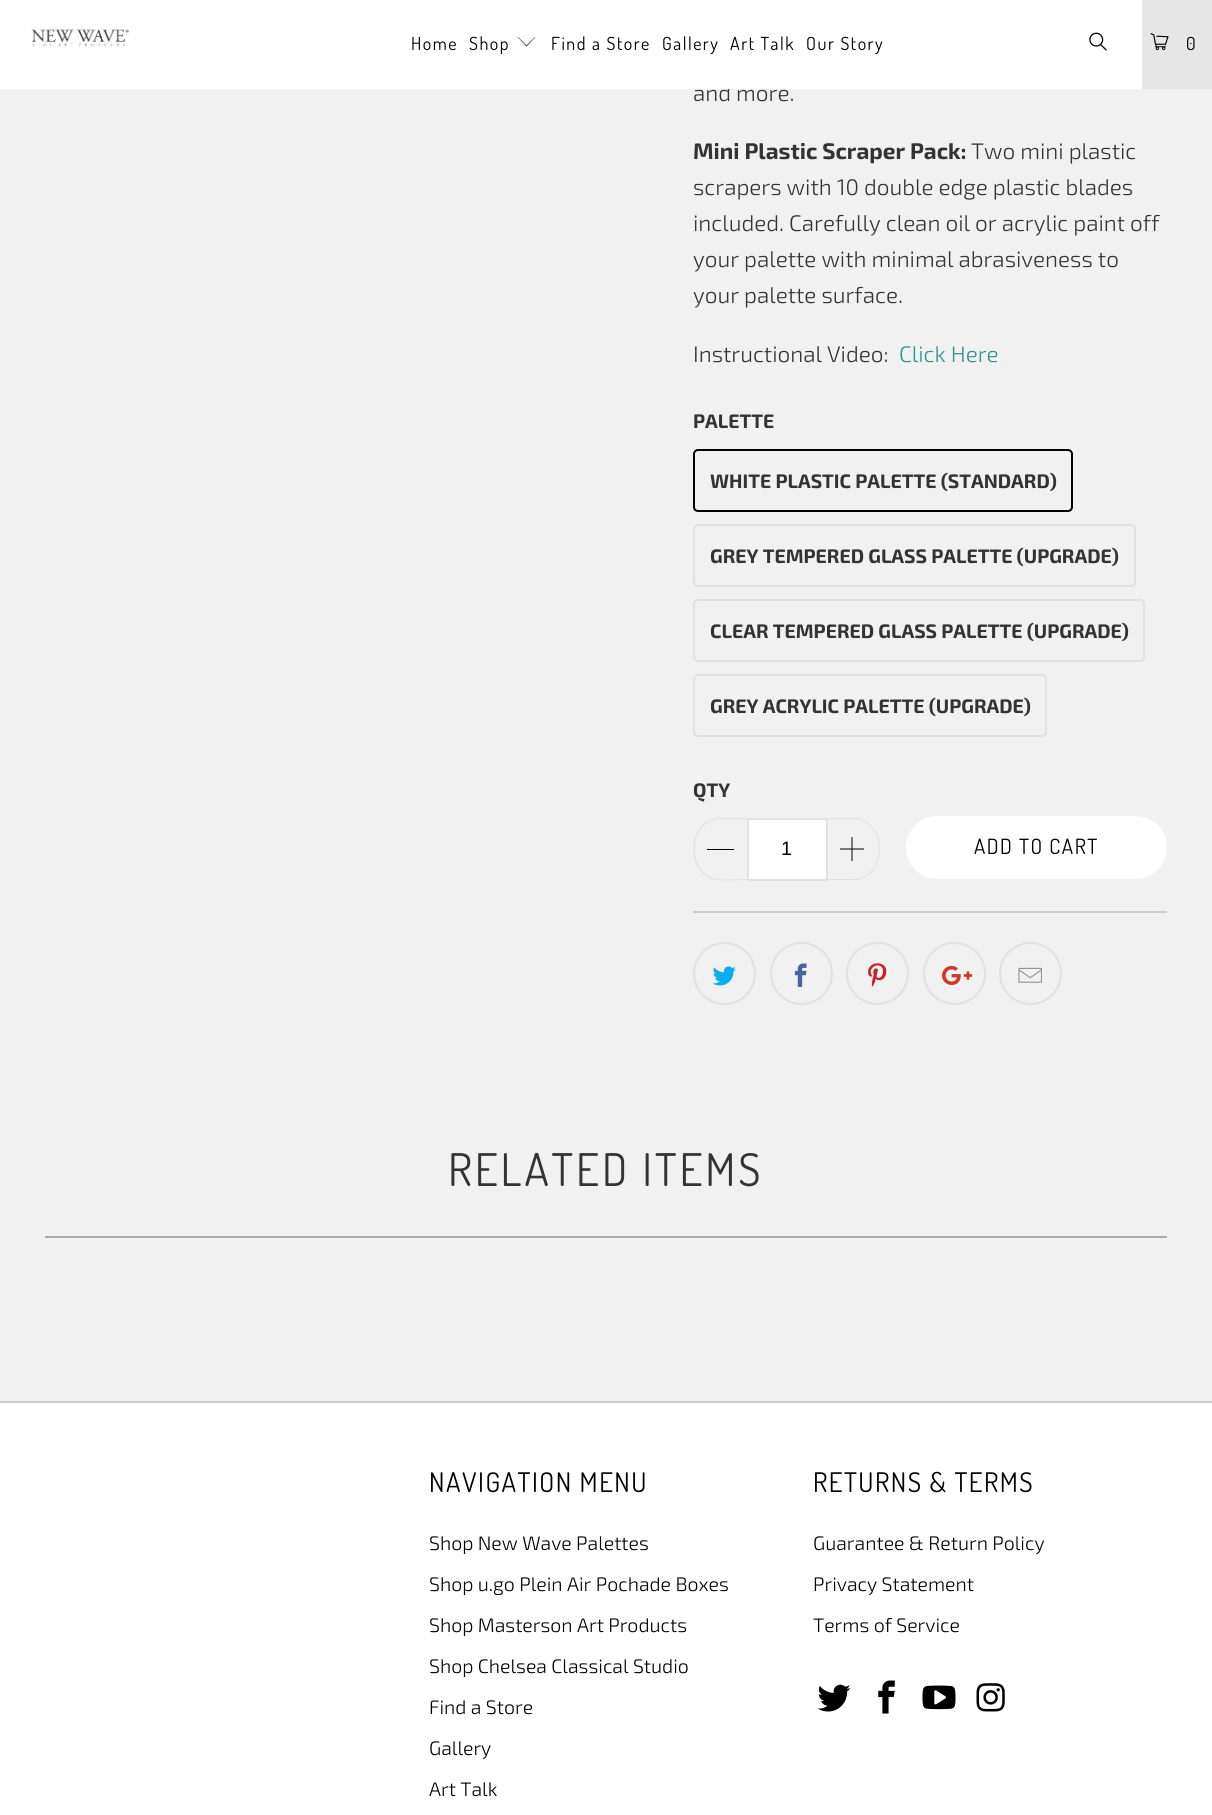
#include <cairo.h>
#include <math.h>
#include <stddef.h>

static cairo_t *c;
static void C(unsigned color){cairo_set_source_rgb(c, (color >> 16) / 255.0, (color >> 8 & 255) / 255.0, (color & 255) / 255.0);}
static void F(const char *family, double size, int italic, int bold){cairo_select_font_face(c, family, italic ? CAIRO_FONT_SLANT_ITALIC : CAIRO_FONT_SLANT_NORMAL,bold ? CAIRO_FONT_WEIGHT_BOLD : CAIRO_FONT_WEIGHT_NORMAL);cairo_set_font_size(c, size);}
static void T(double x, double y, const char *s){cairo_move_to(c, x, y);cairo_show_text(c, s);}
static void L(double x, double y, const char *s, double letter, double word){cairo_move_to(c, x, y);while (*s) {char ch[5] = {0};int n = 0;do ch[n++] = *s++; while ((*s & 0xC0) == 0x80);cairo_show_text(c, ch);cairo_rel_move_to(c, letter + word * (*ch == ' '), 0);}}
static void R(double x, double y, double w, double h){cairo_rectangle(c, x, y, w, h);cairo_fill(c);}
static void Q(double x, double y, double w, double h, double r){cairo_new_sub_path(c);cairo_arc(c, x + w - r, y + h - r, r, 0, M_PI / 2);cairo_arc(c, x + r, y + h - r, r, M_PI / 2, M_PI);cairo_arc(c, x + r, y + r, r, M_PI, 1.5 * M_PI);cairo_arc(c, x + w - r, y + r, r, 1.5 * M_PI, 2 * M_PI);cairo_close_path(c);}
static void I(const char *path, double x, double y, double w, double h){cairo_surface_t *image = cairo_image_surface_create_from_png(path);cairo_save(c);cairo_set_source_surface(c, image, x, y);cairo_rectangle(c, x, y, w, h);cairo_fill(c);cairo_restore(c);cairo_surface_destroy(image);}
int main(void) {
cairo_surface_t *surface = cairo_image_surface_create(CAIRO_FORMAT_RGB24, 1212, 1815);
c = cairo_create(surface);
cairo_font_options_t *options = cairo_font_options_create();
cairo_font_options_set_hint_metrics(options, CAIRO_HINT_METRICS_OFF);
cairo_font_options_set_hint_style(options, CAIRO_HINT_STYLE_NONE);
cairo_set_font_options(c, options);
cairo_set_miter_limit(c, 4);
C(0xf1f1f1);
cairo_paint(c);
F("Exo 2 Light",22.5,0,0);
C(0x333333);
T(693,101,"and more.");
C(0xffffff);
R(0,0,1142,89);
I("1.png",31,29,98,18);
F("Dosis",18,0,0);
C(0x000000);
L(411,50,"Home",1.5,0);
L(469,50,"Shop",1.5,0);
cairo_new_path(c);
cairo_move_to(c,526.5,46.5);
cairo_line_to(c,517.5,37);
cairo_line_to(c,518,37);
cairo_line_to(c,526.5,45.5);
cairo_line_to(c,535,37);
cairo_line_to(c,535.5,37);
cairo_close_path(c);
cairo_fill(c);
L(551,50,"Find a Store",1.5,0);
L(662,50,"Gallery",1.5,0);
L(730,50,"Art Talk",1.5,0);
L(806,50,"Our Story",1.5,0);
I("2.png",1089,32,18,19);
C(0xe6e6e6);
R(1142,0,70,89);
I("3.png",1150,33,19,18);
C(0x000000);
L(1186,50,"0",1.5,0);
F("Exo 2",22.5,0,1);
C(0x333333);
T(693,159,"Mini Plastic Scraper Pack:");
F("Exo 2 Light",22.5,0,0);
T(971,159,"Two mini plastic");
T(693,195,"scrapers with 10 double edge plastic blades");
T(693,231,"included. Carefully clean oil or acrylic paint off");
T(693,267,"your palette with minimal abrasiveness to");
T(693,303,"your palette surface.");
T(693,362,"Instructional Video:");
C(0x339190);
T(899,362,"Click Here");
F("Exo 2",19.5,0,1);
C(0x333333);
T(693,428,"PALETTE");
Q(694,450,378,61,4);
C(0x000000);
cairo_stroke(c);
C(0x333333);
T(710,488,"WHITE PLASTIC PALETTE (STANDARD)");
Q(694,525,441,61,4);
C(0xe2e2e2);
cairo_stroke(c);
C(0x333333);
T(710,563,"GREY TEMPERED GLASS PALETTE (UPGRADE)");
Q(694,600,450,61,4);
C(0xe2e2e2);
cairo_stroke(c);
C(0x333333);
T(710,638,"CLEAR TEMPERED GLASS PALETTE (UPGRADE)");
Q(694,675,352,61,4);
C(0xe2e2e2);
cairo_stroke(c);
C(0x333333);
T(710,713,"GREY ACRYLIC PALETTE (UPGRADE)");
T(693,797,"QTY");
C(0xe2e2e2);
cairo_set_fill_rule(c,CAIRO_FILL_RULE_EVEN_ODD);
cairo_new_path(c);
cairo_move_to(c,720,818);
cairo_line_to(c,747,818);
cairo_line_to(c,747,880);
cairo_curve_to(c,737,880,718,882,709,878);
cairo_curve_to(c,684,865,690,818,720,818);
cairo_close_path(c);
cairo_move_to(c,720,819);
cairo_line_to(c,747,819);
cairo_line_to(c,747,879);
cairo_curve_to(c,738,879,718,881,710,877);
cairo_curve_to(c,686,865,691,819,720,819);
cairo_close_path(c);
cairo_fill(c);
C(0x000000);
R(707,849,27,1);
C(0xffffff);
cairo_rectangle(c,748,819,79,61);
cairo_fill_preserve(c);
C(0xe2e2e2);
cairo_stroke(c);
F("Liberation Sans",19.5,0,0);
C(0x000000);
T(781,855,"1");
C(0xe2e2e2);
cairo_new_path(c);
cairo_move_to(c,828,818);
cairo_line_to(c,854,818);
cairo_curve_to(c,869,818,880,832,880,849);
cairo_curve_to(c,880,866,869,880,854,880);
cairo_line_to(c,828,880);
cairo_close_path(c);
cairo_move_to(c,828,819);
cairo_line_to(c,854,819);
cairo_curve_to(c,868,819,879,832,879,849);
cairo_curve_to(c,879,866,868,879,854,879);
cairo_line_to(c,828,879);
cairo_close_path(c);
cairo_fill(c);
I("4.png",840,837,24,24);
C(0xffffff);
Q(907,817,259,61,30.5);
cairo_fill_preserve(c);
cairo_stroke(c);
F("Dosis",21,0,0);
C(0x000000);
L(974,854,"ADD TO CART",1.5,0);
C(0xcccccc);
R(693,911,474,2);
cairo_new_path(c);
cairo_arc(c,724.5,973.5,30.5,0,2 * M_PI);
C(0xe2e2e2);
cairo_stroke(c);
I("5.png",712,966,24,20);
cairo_arc(c,801.5,973.5,30.5,0,2 * M_PI);
cairo_stroke(c);
I("6.png",794,963,13,24);
cairo_arc(c,877.5,973.5,30.5,0,2 * M_PI);
cairo_stroke(c);
I("7.png",868,963,19,24);
cairo_arc(c,954.5,973.5,30.5,0,2 * M_PI);
cairo_stroke(c);
I("8.png",942,965,31,20);
cairo_arc(c,1030.5,973.5,30.5,0,2 * M_PI);
cairo_stroke(c);
I("9.png",1018,967,24,16);
F("Dosis",45,0,0);
C(0x333333);
L(448,1186,"RELATED ITEMS",3,0);
C(0xaaaaaa);
R(45,1236,1122,2);
C(0xffffff);
R(0,1403,1212,412);
C(0xcccccc);
R(0,1401,1212,2);
F("Dosis",27,0,0);
C(0x000000);
L(429,1492,"NAVIGATION MENU",1.5,0);
F("Exo 2 Light",19.5,0,0);
T(429,1550,"Shop New Wave Palettes");
T(429,1591,"Shop u.go Plein Air Pochade Boxes");
T(429,1632,"Shop Masterson Art Products");
T(429,1673,"Shop Chelsea Classical Studio");
T(429,1714,"Find a Store");
T(429,1755,"Gallery");
T(429,1796,"Art Talk");
F("Dosis",27,0,0);
L(813,1492,"RETURNS & TERMS",1.5,0);
F("Exo 2 Light",19.5,0,0);
T(813,1550,"Guarantee & Return Policy");
T(813,1591,"Privacy Statement");
T(813,1632,"Terms of Service");
I("10.png",817,1684,34,28);
I("11.png",878,1680,17,34);
I("12.png",922,1685,34,25);
I("13.png",976,1683,29,29);
cairo_surface_write_to_png(surface, "o.png");
cairo_font_options_destroy(options);
cairo_destroy(c);
cairo_surface_destroy(surface);
return 0;
}
